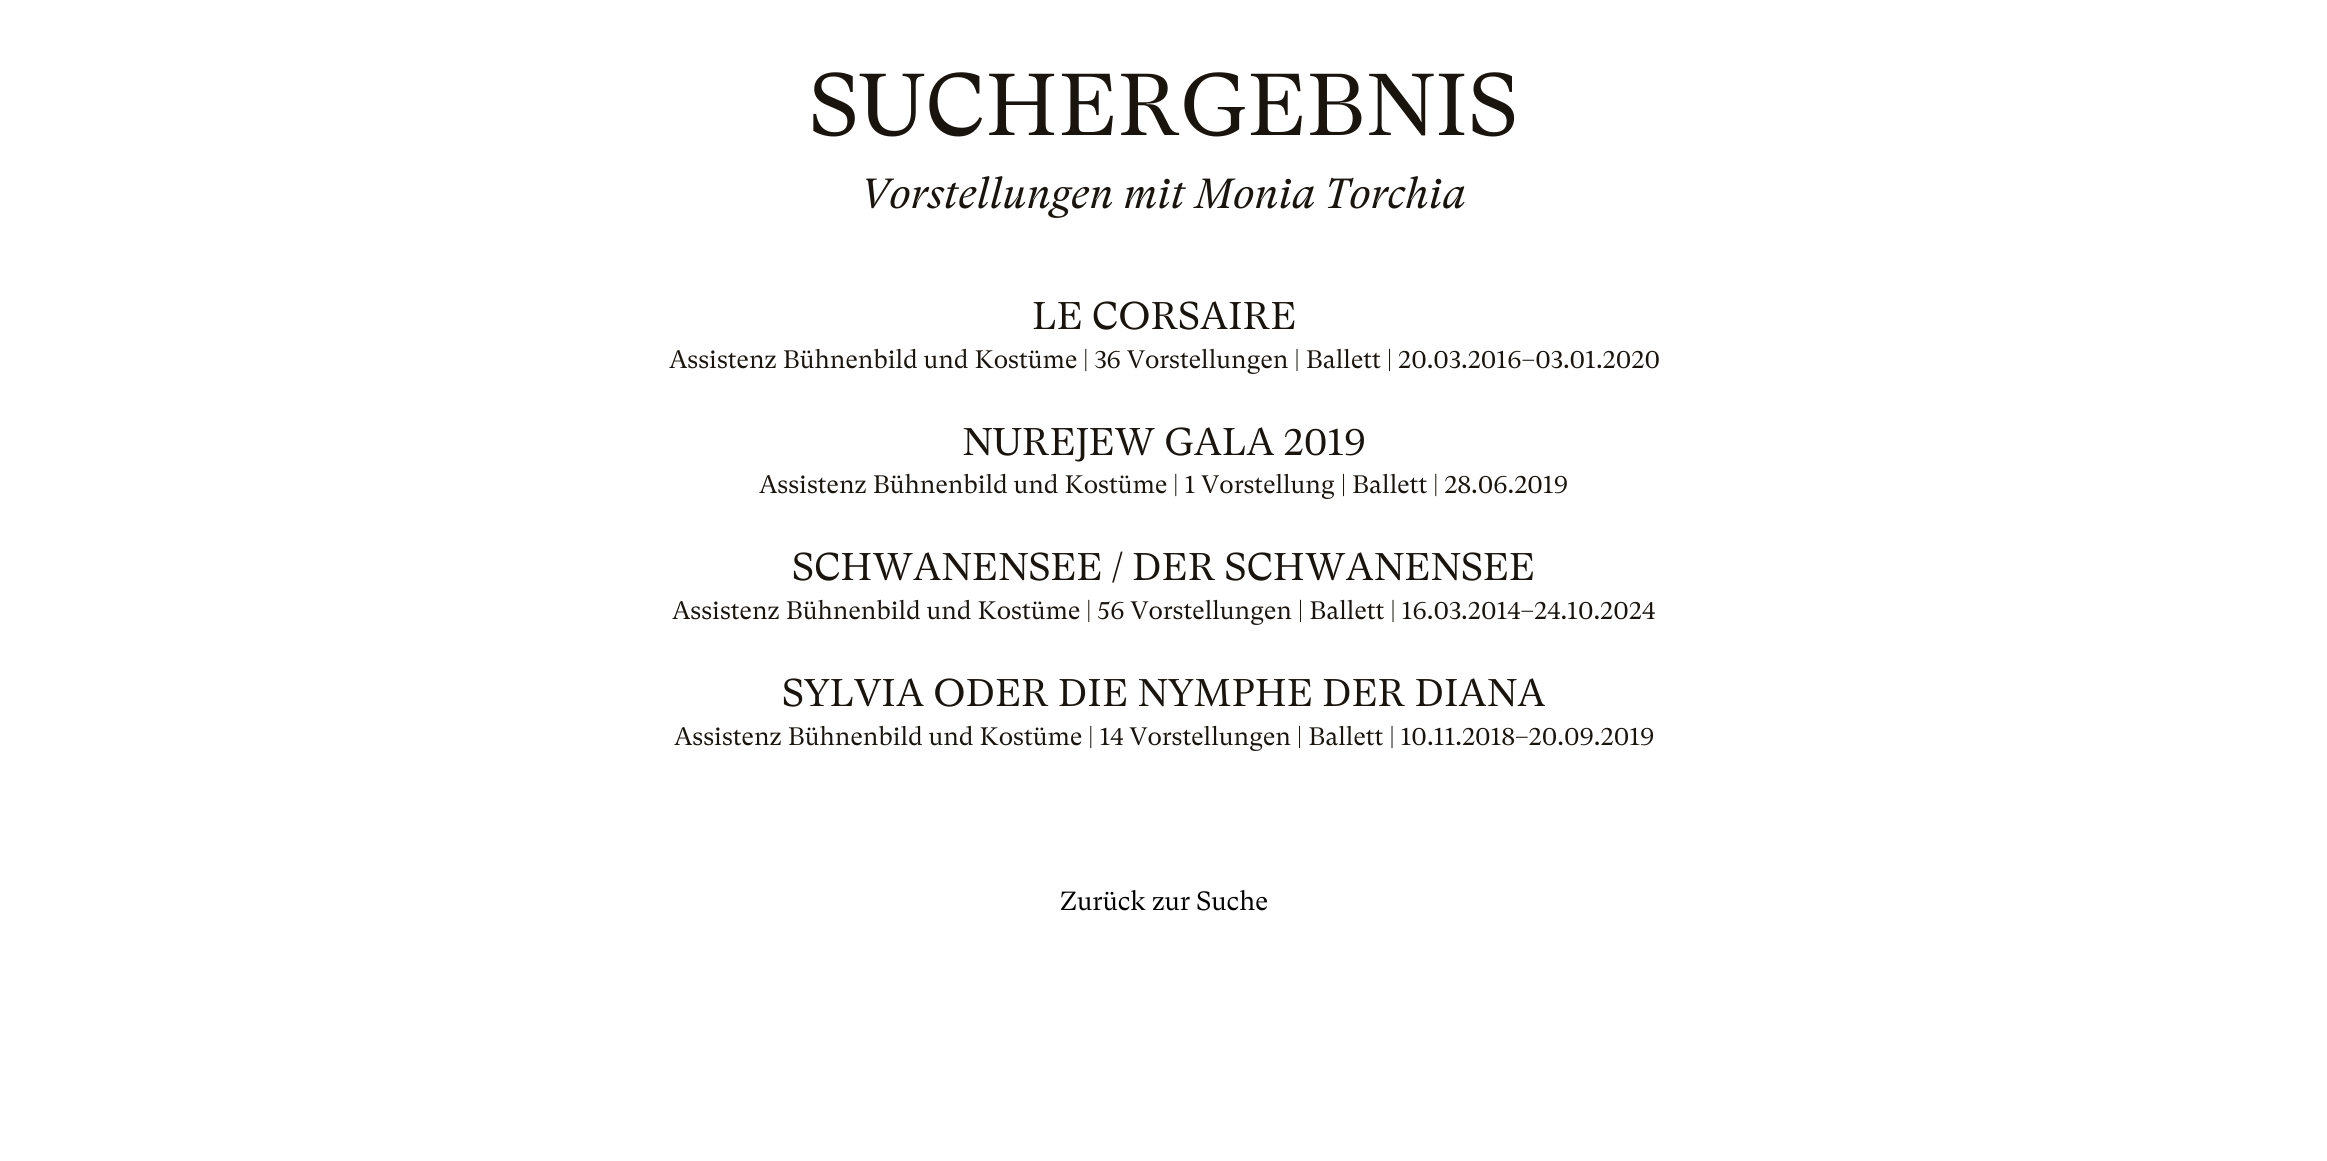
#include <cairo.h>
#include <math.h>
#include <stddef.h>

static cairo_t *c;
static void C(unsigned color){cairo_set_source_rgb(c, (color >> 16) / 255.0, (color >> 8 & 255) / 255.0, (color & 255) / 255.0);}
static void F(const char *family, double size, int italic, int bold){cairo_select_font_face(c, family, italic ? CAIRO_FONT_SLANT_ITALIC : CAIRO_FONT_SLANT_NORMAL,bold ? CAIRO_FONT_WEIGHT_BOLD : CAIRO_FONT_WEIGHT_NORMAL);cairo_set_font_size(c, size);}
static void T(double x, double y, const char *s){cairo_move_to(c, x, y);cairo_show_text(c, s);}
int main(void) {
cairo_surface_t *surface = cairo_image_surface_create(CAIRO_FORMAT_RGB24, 2327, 1161);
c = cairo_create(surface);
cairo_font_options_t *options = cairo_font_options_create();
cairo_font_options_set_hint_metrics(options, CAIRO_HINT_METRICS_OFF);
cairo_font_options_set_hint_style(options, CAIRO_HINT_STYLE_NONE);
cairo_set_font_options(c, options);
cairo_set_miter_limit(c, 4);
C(0xffffff);
cairo_paint(c);
F("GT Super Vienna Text",87.5,0,0);
C(0x19140e);
T(809,135,"SUCHERGEBNIS");
F("GT Super Vienna Text",42,1,0);
T(861,208,"Vorstellungen mit Monia Torchia");
F("GT Super Vienna Text",38.5,0,0);
T(1032,329,"LE CORSAIRE");
F("GT Super Vienna Text",25.2,0,0);
T(669,368,"Assistenz Bühnenbild und Kostüme | 36 Vorstellungen | Ballett | 20.03.2016–03.01.2020");
F("GT Super Vienna Text",38.5,0,0);
T(962,455,"NUREJEW GALA 2019");
F("GT Super Vienna Text",25.2,0,0);
T(759,493,"Assistenz Bühnenbild und Kostüme | 1 Vorstellung | Ballett | 28.06.2019");
F("GT Super Vienna Text",38.5,0,0);
T(792,580,"SCHWANENSEE / DER SCHWANENSEE");
F("GT Super Vienna Text",25.2,0,0);
T(672,619,"Assistenz Bühnenbild und Kostüme | 56 Vorstellungen | Ballett | 16.03.2014–24.10.2024");
F("GT Super Vienna Text",38.5,0,0);
T(782,706,"SYLVIA ODER DIE NYMPHE DER DIANA");
F("GT Super Vienna Text",25.2,0,0);
T(674,745,"Assistenz Bühnenbild und Kostüme | 14 Vorstellungen | Ballett | 10.11.2018–20.09.2019");
F("GT Super Vienna Text",26.25,0,0);
C(0x000000);
T(1060,910,"Zurück zur Suche");
cairo_surface_write_to_png(surface, "o.png");
cairo_font_options_destroy(options);
cairo_destroy(c);
cairo_surface_destroy(surface);
return 0;
}
